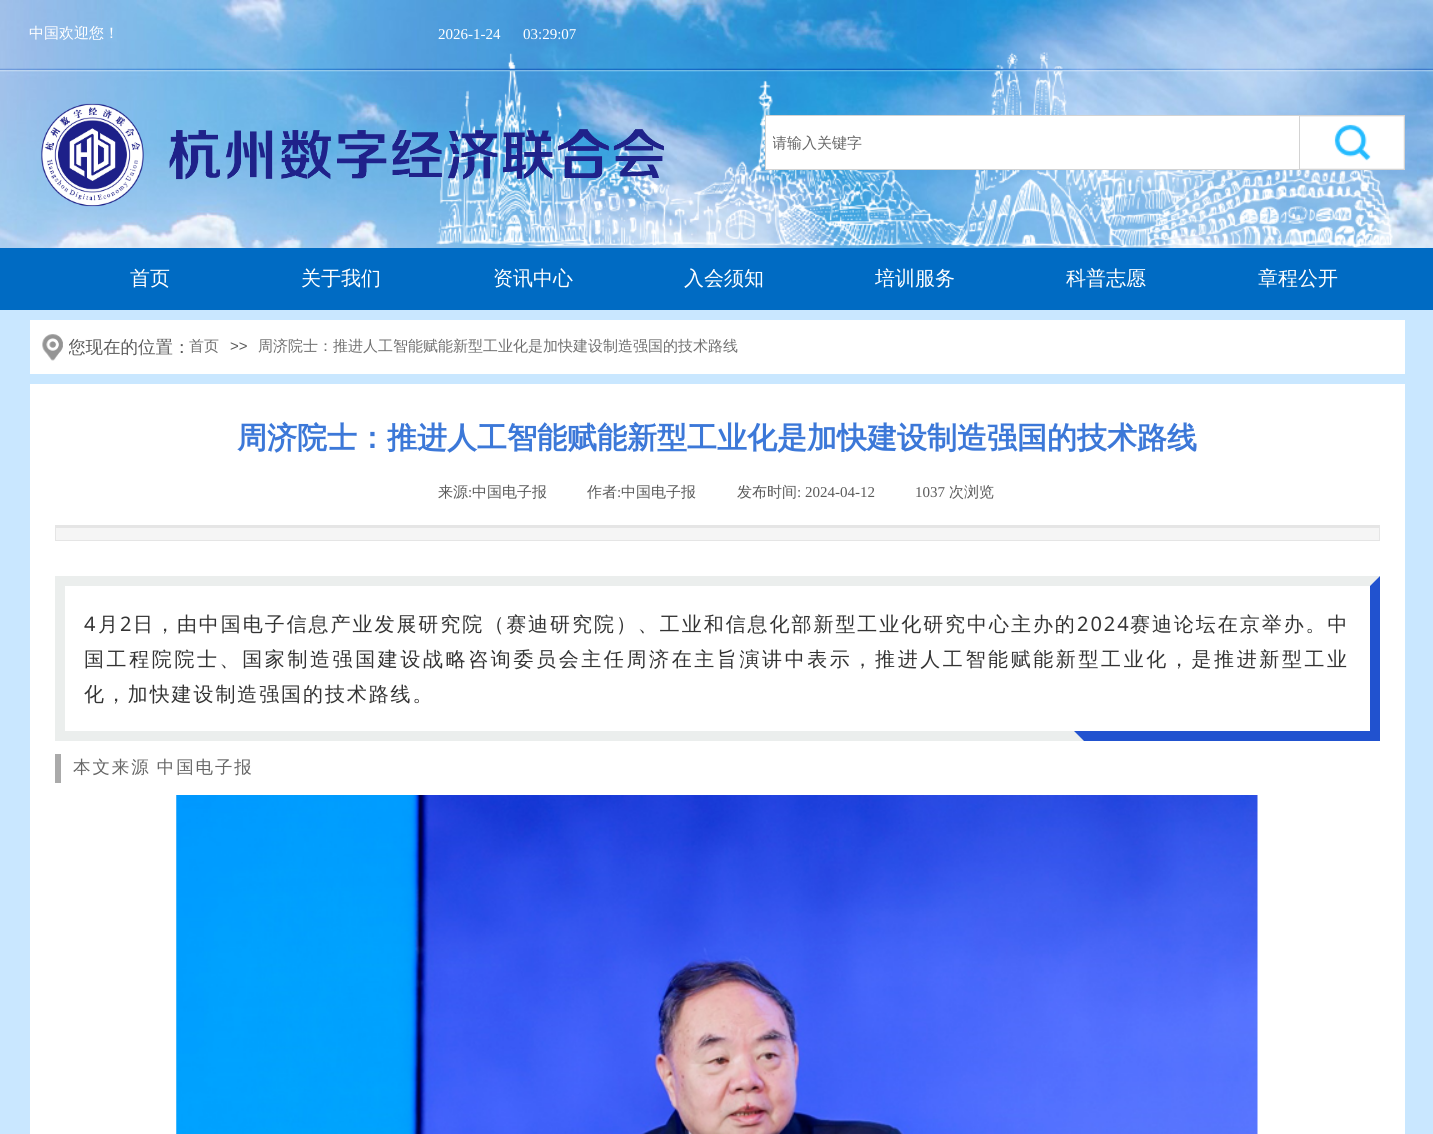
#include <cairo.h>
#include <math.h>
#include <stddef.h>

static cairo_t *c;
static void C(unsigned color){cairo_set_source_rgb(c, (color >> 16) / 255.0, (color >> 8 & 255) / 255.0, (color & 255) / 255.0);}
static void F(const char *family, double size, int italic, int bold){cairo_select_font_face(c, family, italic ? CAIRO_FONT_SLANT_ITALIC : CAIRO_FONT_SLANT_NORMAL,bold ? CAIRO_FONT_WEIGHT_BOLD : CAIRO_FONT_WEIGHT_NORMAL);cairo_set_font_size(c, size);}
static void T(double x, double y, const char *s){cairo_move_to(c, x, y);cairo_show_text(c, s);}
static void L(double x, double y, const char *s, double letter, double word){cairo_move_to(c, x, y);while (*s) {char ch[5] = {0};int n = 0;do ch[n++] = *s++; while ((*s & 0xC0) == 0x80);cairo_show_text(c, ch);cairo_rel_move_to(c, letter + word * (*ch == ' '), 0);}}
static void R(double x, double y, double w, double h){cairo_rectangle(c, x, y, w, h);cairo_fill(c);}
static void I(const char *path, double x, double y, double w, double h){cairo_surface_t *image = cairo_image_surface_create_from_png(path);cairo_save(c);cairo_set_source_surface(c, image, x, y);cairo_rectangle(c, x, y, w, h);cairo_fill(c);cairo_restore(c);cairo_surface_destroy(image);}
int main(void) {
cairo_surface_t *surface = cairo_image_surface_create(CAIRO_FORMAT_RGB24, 1433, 1134);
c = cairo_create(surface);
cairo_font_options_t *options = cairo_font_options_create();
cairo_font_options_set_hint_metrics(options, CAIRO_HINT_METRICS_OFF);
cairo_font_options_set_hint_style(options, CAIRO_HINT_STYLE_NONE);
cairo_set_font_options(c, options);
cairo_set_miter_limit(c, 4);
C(0xc9e7ff);
cairo_paint(c);
I("1.png",0,0,1433,248);
F("WenQuanYi Zen Hei Medium",15,0,0);
C(0xffffff);
T(29,38,"中国欢迎您！");
F("Liberation Serif",15,0,0);
T(438,39,"2026-1-24");
T(523,39,"03:29:07");
I("2.png",436,52,957,196);
I("3.png",0,68,1433,4);
I("4.png",41,103,103,104);
I("5.png",169,129,495,51);
cairo_rectangle(c,765.5,115.5,534,54);
cairo_fill_preserve(c);
C(0xd3d3d3);
cairo_set_line_width(c,1);
cairo_stroke(c);
cairo_save(c);
cairo_rectangle(c,773,116,520,53);
cairo_clip(c);
F("WenQuanYi Zen Hei Medium",15,0,0);
C(0x666666);
T(772,148,"请输入关键字");
cairo_restore(c);
I("6.png",1300,115,105,55);
C(0x006bc3);
R(0,248,1433,62);
F("WenQuanYi Zen Hei Medium",20,0,0);
C(0xffffff);
T(130,285,"首页");
T(301,285,"关于我们");
T(493,285,"资讯中心");
T(684,285,"入会须知");
T(875,285,"培训服务");
T(1066,285,"科普志愿");
T(1258,285,"章程公开");
R(30,320,1375,54);
I("7.png",42,334,21,27);
cairo_save(c);
cairo_rectangle(c,69,335,127,29);
cairo_clip(c);
F("WenQuanYi Zen Hei Medium",17.5,0,0);
C(0x5a5a5a);
T(68,353,"您现在的位置：");
cairo_restore(c);
F("WenQuanYi Zen Hei Medium",15,0,0);
C(0x6f6f6f);
T(189,351,"首页");
F("Liberation Sans",15,0,0);
C(0x5a5a5a);
T(230,351,">>");
F("WenQuanYi Zen Hei Medium",15,0,0);
C(0x6f6f6f);
T(258,351,"周济院士：推进人工智能赋能新型工业化是加快建设制造强国的技术路线");
C(0xffffff);
R(30,384,1375,750);
F("WenQuanYi Zen Hei",30,0,1);
C(0x3c78d8);
T(237,448,"周济院士：推进人工智能赋能新型工业化是加快建设制造强国的技术路线");
F("WenQuanYi Zen Hei Medium",15,0,0);
C(0x5a5a5a);
T(438,497,"来源");
F("Liberation Serif",15,0,0);
T(468,497,":");
F("WenQuanYi Zen Hei Medium",15,0,0);
T(472,497,"中国电子报");
T(587,497,"作者");
F("Liberation Serif",15,0,0);
T(617,497,":");
F("WenQuanYi Zen Hei Medium",15,0,0);
T(621,497,"中国电子报");
T(737,497,"发布时间");
F("Liberation Serif",15,0,0);
T(797,497,": 2024-04-12");
T(915,497,"1037");
F("WenQuanYi Zen Hei Medium",15,0,0);
T(949,497,"次浏览");
C(0xf5f5f5);
R(56,528,1323,12);
C(0xe5e5e5);
R(55,525,1325,3);
R(1379,525,1,16);
R(55,540,1325,1);
R(55,525,1,16);
C(0xebeeed);
cairo_new_path(c);
cairo_move_to(c,55,576);
cairo_line_to(c,1380,576);
cairo_line_to(c,1370,586);
cairo_line_to(c,65,586);
cairo_close_path(c);
cairo_fill(c);
C(0x2152cf);
cairo_new_path(c);
cairo_move_to(c,1380,576);
cairo_line_to(c,1380,741);
cairo_line_to(c,1370,731);
cairo_line_to(c,1370,586);
cairo_close_path(c);
cairo_fill(c);
C(0xebeeed);
cairo_new_path(c);
cairo_move_to(c,1380,741);
cairo_line_to(c,55,741);
cairo_line_to(c,65,731);
cairo_line_to(c,1370,731);
cairo_close_path(c);
cairo_fill(c);
R(55,576,10,165);
F("Noto Sans",20,0,0);
C(0x333333);
L(84,631,"4",1.95,0);
F("WenQuanYi Zen Hei Medium",20,0,0);
L(98,631,"月",1.95,0);
F("Noto Sans",20,0,0);
L(120,631,"2",1.95,0);
F("WenQuanYi Zen Hei Medium",20,0,0);
L(133,631,"日，由中国电子信息产业发展研究院（赛迪研究院）、工业和信息化部新型工业化研究中心主办的",1.95,0);
F("Noto Sans",20,0,0);
L(1077,631,"2024",1.95,0);
F("WenQuanYi Zen Hei Medium",20,0,0);
L(1130,631,"赛迪论坛在京举办。中",1.95,0);
L(84,666,"国工程院院士、国家制造强国建设战略咨询委员会主任周济在主旨演讲中表示，推进人工智能赋能新型工业化，是推进新型工业",2.6,0);
L(84,701,"化，加快建设制造强国的技术路线。",1.9,0);
C(0x2152cf);
cairo_new_path(c);
cairo_move_to(c,1074,731);
cairo_line_to(c,1084,731);
cairo_line_to(c,1084,741);
cairo_close_path(c);
cairo_fill(c);
R(1084,731,296,10);
C(0xaaaaaa);
R(55,754,6,29);
F("WenQuanYi Zen Hei Medium",17.5,0,0);
C(0x666666);
L(73,773,"本文来源 中国电子报",1.9,-1);
I("8.png",176,795,1082,339);
cairo_surface_write_to_png(surface, "o.png");
cairo_font_options_destroy(options);
cairo_destroy(c);
cairo_surface_destroy(surface);
return 0;
}
